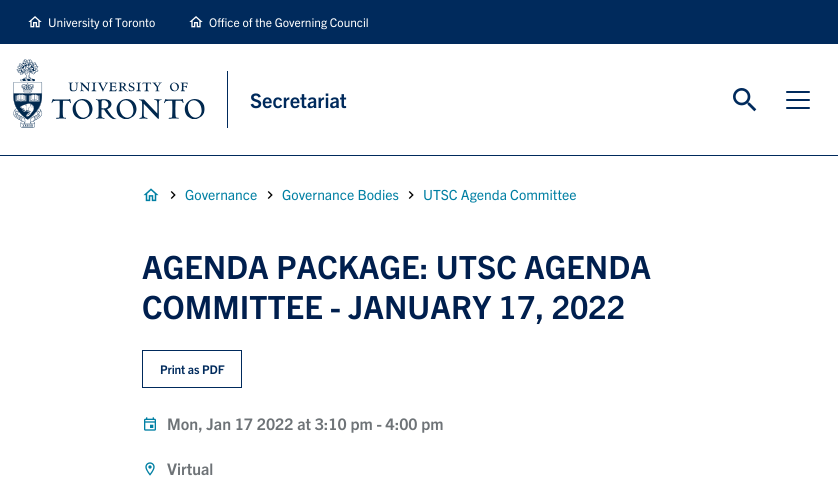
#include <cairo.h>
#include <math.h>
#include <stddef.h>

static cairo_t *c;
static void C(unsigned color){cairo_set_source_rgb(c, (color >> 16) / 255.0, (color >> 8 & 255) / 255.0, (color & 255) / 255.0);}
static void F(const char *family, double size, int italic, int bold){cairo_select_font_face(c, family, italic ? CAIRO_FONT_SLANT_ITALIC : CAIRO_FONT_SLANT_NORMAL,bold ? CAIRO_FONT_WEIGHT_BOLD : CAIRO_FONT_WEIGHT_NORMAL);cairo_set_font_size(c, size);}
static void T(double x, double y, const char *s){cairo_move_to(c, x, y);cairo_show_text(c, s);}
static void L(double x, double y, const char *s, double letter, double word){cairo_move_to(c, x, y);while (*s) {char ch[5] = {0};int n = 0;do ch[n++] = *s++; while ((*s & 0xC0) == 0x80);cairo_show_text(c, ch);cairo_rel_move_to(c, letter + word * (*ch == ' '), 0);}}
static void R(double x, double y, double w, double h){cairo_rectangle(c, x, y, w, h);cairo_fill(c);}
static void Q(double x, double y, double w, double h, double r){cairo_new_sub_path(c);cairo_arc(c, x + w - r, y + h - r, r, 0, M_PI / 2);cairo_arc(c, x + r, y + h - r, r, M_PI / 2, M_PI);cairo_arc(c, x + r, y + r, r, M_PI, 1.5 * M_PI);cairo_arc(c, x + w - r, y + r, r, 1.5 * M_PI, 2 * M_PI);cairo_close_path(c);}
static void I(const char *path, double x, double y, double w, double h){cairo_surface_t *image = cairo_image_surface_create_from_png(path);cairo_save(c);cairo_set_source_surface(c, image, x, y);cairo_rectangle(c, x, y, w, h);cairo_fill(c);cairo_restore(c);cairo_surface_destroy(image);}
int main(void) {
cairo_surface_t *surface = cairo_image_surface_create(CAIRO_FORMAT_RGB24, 838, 485);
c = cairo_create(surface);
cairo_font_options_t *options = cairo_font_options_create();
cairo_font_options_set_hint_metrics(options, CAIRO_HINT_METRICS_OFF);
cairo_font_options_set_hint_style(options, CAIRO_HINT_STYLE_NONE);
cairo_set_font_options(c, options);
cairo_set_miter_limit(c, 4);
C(0xffffff);
cairo_paint(c);
C(0x002a5c);
R(0,0,838,44);
I("1.png",28,16,14,12);
F("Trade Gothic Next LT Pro",12,0,0);
C(0xfefefe);
T(48,27,"University of Toronto");
I("1.png",189,16,14,12);
T(209,27,"Office of the Governing Council");
C(0x002a5c);
R(0,155,838,1);
R(227,71,1,57);
I("2.png",13,59,192,69);
F("Trade Gothic Next LT Pro",20,0,1);
T(250,108,"Secretariat");
I("3.png",733,88,24,24);
Q(786,99,24,2,1);
cairo_fill(c);
Q(786,91,24,2,1);
cairo_fill(c);
Q(786,107,24,2,1);
cairo_fill(c);
I("4.png",143,188,16,14);
I("5.png",170,191,6,8);
F("Trade Gothic Next LT Pro",14,0,0);
C(0x007fa3);
T(185,200,"Governance");
I("5.png",267,191,6,8);
T(282,200,"Governance Bodies");
I("5.png",408,191,6,8);
T(423,200,"UTSC Agenda Committee");
F("Trade Gothic Next LT Pro",32,0,1);
C(0x001f4e);
T(142,279,"AGENDA PACKAGE: UTSC AGENDA");
T(142,319,"COMMITTEE - JANUARY 17, 2022");
cairo_rectangle(c,142.5,350.5,99,37);
C(0x002a5c);
cairo_set_line_width(c,1);
cairo_stroke(c);
F("Trade Gothic Next LT Pro",12,0,1);
L(160,374,"Print as PDF",-.1,0);
I("6.png",144,417,12,14);
F("Trade Gothic Next LT Pro",16,0,1);
C(0x6e7377);
T(167,430,"Mon, Jan 17 2022 at 3:10 pm - 4:00 pm");
I("7.png",145,462,10,14);
T(167,475,"Virtual");
cairo_surface_write_to_png(surface, "o.png");
cairo_font_options_destroy(options);
cairo_destroy(c);
cairo_surface_destroy(surface);
return 0;
}
